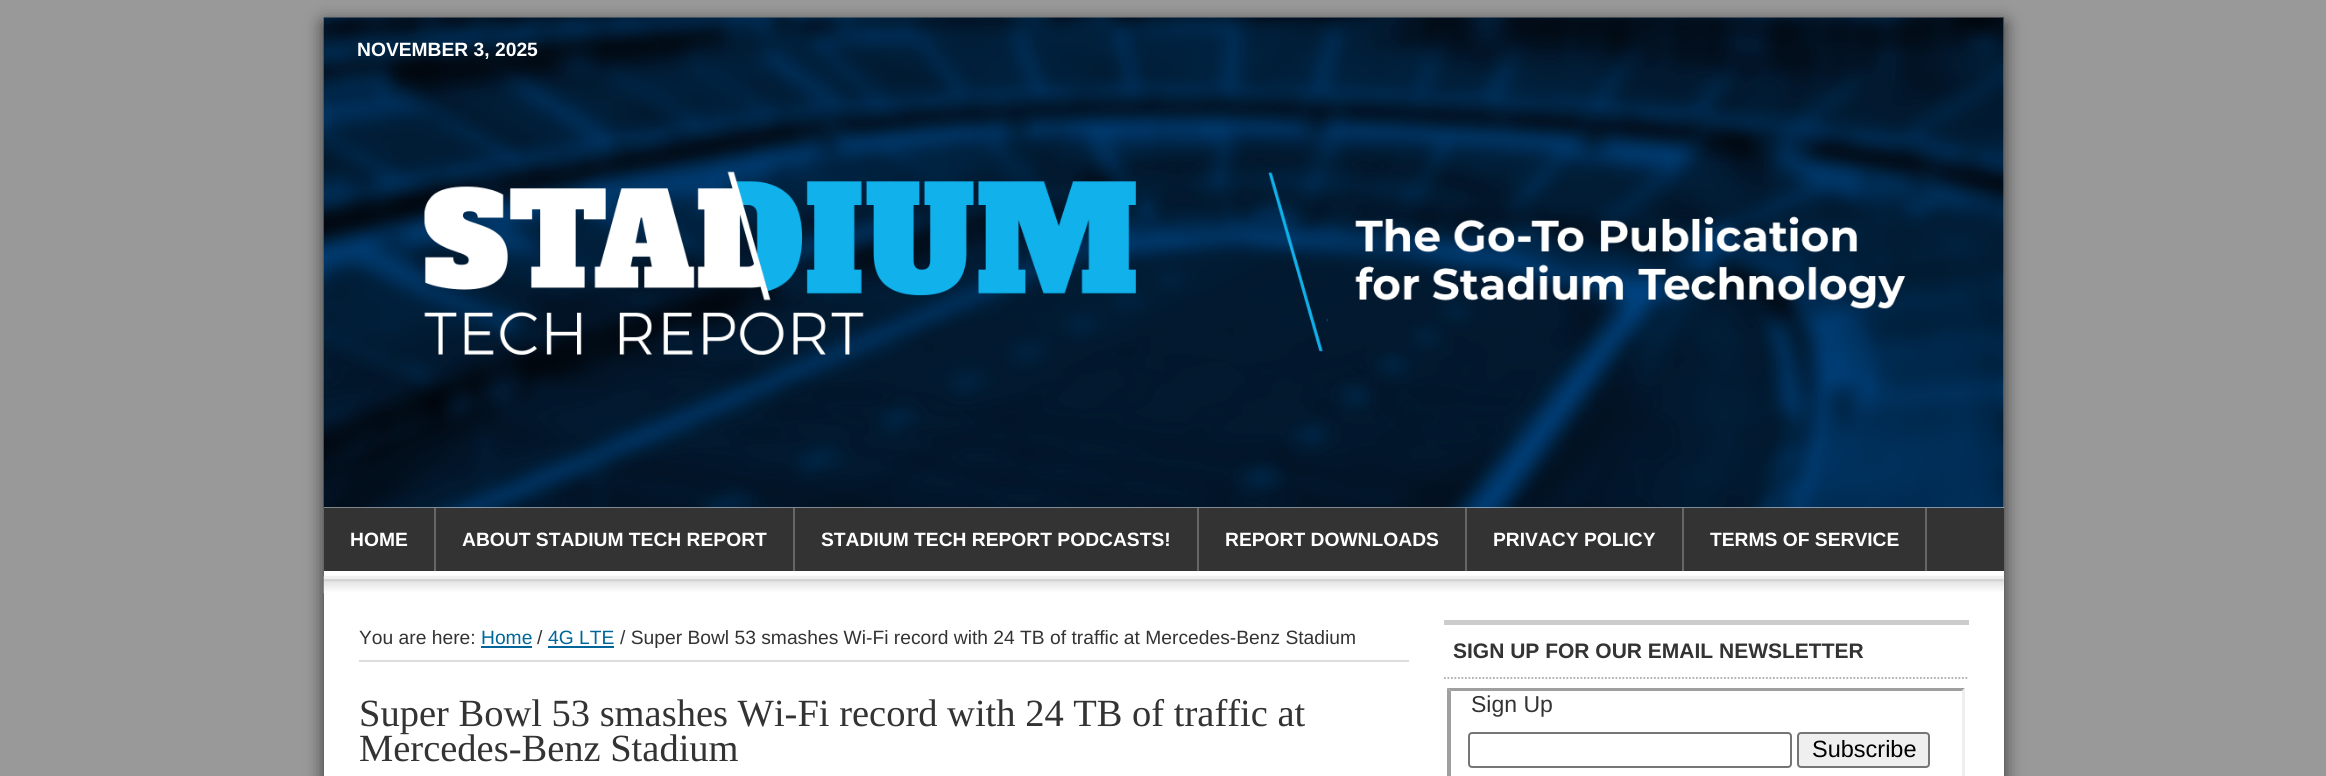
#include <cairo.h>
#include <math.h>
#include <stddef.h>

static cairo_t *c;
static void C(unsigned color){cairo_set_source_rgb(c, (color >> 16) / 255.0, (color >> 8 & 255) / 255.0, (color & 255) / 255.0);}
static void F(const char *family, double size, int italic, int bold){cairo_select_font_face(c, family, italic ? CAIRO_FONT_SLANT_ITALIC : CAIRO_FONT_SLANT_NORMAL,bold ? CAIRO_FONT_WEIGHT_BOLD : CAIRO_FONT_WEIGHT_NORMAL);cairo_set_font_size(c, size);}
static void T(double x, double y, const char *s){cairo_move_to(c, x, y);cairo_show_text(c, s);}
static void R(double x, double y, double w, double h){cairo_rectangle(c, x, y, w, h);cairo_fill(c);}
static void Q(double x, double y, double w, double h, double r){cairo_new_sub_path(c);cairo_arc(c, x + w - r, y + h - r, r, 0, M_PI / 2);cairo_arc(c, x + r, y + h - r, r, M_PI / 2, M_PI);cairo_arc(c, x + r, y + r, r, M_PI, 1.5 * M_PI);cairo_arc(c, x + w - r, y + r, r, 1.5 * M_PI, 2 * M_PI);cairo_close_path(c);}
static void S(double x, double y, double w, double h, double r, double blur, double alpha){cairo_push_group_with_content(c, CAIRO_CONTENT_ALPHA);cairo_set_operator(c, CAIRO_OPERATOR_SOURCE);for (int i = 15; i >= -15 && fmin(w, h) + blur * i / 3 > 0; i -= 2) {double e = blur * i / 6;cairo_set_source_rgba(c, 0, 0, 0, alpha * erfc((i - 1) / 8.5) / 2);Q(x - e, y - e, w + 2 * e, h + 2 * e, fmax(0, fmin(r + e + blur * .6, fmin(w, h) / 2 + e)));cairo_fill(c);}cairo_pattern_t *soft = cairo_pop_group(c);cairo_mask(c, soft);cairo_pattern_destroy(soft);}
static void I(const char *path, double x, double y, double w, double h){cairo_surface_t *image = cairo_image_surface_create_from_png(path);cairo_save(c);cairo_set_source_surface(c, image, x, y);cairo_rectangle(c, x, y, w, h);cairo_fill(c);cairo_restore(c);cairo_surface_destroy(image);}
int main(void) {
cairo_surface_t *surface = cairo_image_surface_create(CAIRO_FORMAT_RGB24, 2326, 776);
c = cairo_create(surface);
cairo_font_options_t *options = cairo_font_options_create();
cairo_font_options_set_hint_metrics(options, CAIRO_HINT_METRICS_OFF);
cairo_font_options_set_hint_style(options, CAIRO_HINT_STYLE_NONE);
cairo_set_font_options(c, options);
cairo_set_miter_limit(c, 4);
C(0x999999);
cairo_paint(c);
C(0x333333);
S(324,23,1680,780,0,9,1);
C(0xffffff);
R(324,18,1680,758);
I("1.png",323,17,1681,491);
F("Liberation Sans",19.25,0,1);
T(357,56,"NOVEMBER 3, 2025");
C(0x333333);
R(324,508,1680,63);
C(0x666666);
R(434,508,2,63);
C(0xffffff);
T(350,546,"HOME");
C(0x666666);
R(793,508,2,63);
C(0xffffff);
T(462,546,"ABOUT STADIUM TECH REPORT");
C(0x666666);
R(1197,508,2,63);
C(0xffffff);
T(821,546,"STADIUM TECH REPORT PODCASTS!");
C(0x666666);
R(1465,508,2,63);
C(0xffffff);
T(1225,546,"REPORT DOWNLOADS");
C(0x666666);
R(1682,508,2,63);
C(0xffffff);
T(1493,546,"PRIVACY POLICY");
C(0x666666);
R(1925,508,2,63);
C(0xffffff);
T(1710,546,"TERMS OF SERVICE");
I("2.png",323,575,1681,19);
C(0xdddddd);
R(359,660,1050,2);
F("Liberation Sans",19.25,0,0);
C(0x333333);
T(359,644,"You are here:");
C(0x006699);
T(481,644,"Home");
R(481,646,51,2);
C(0x333333);
T(537,644,"/");
C(0x006699);
T(548,644,"4G LTE");
R(548,646,66,2);
C(0x333333);
T(620,644,"/ Super Bowl 53 smashes Wi-Fi record with 24 TB of traffic at Mercedes-Benz Stadium");
F("Liberation Serif",38.5,0,0);
T(359,726,"Super Bowl 53 smashes Wi-Fi record with 24 TB of traffic at");
T(359,761,"Mercedes-Benz Stadium");
C(0xcccccc);
R(1444,620,525,5);
cairo_new_path(c);
cairo_move_to(c,1444,678);
cairo_line_to(c,1969,678);
C(0xaaaaaa);
cairo_set_line_width(c,1.8);
cairo_set_dash(c,(double[]){1.75,1.75},2,0);
cairo_stroke(c);
F("Liberation Sans",21,0,1);
C(0x333333);
T(1453,658,"SIGN UP FOR OUR EMAIL NEWSLETTER");
C(0x9f9f9f);
cairo_new_path(c);
cairo_move_to(c,1447,688);
cairo_line_to(c,1965,688);
cairo_line_to(c,1962,691);
cairo_line_to(c,1451,691);
cairo_close_path(c);
cairo_fill(c);
C(0xefefef);
cairo_new_path(c);
cairo_move_to(c,1965,688);
cairo_line_to(c,1965,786);
cairo_line_to(c,1962,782);
cairo_line_to(c,1962,691);
cairo_close_path(c);
cairo_fill(c);
C(0x9f9f9f);
cairo_new_path(c);
cairo_move_to(c,1447,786);
cairo_line_to(c,1447,688);
cairo_line_to(c,1451,691);
cairo_line_to(c,1451,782);
cairo_close_path(c);
cairo_fill(c);
F("Liberation Sans",23,0,0);
C(0x333333);
T(1471,712,"Sign Up");
Q(1469,733,322,34,3);
C(0x767676);
cairo_set_line_width(c,2);
cairo_set_dash(c,NULL,0,0);
cairo_stroke(c);
C(0xefefef);
Q(1798,733,131,34,3);
cairo_fill_preserve(c);
C(0x767676);
cairo_stroke(c);
F("Liberation Sans",23.5,0,0);
C(0x000000);
T(1812,757,"Subscribe");
cairo_surface_write_to_png(surface, "o.png");
cairo_font_options_destroy(options);
cairo_destroy(c);
cairo_surface_destroy(surface);
return 0;
}
